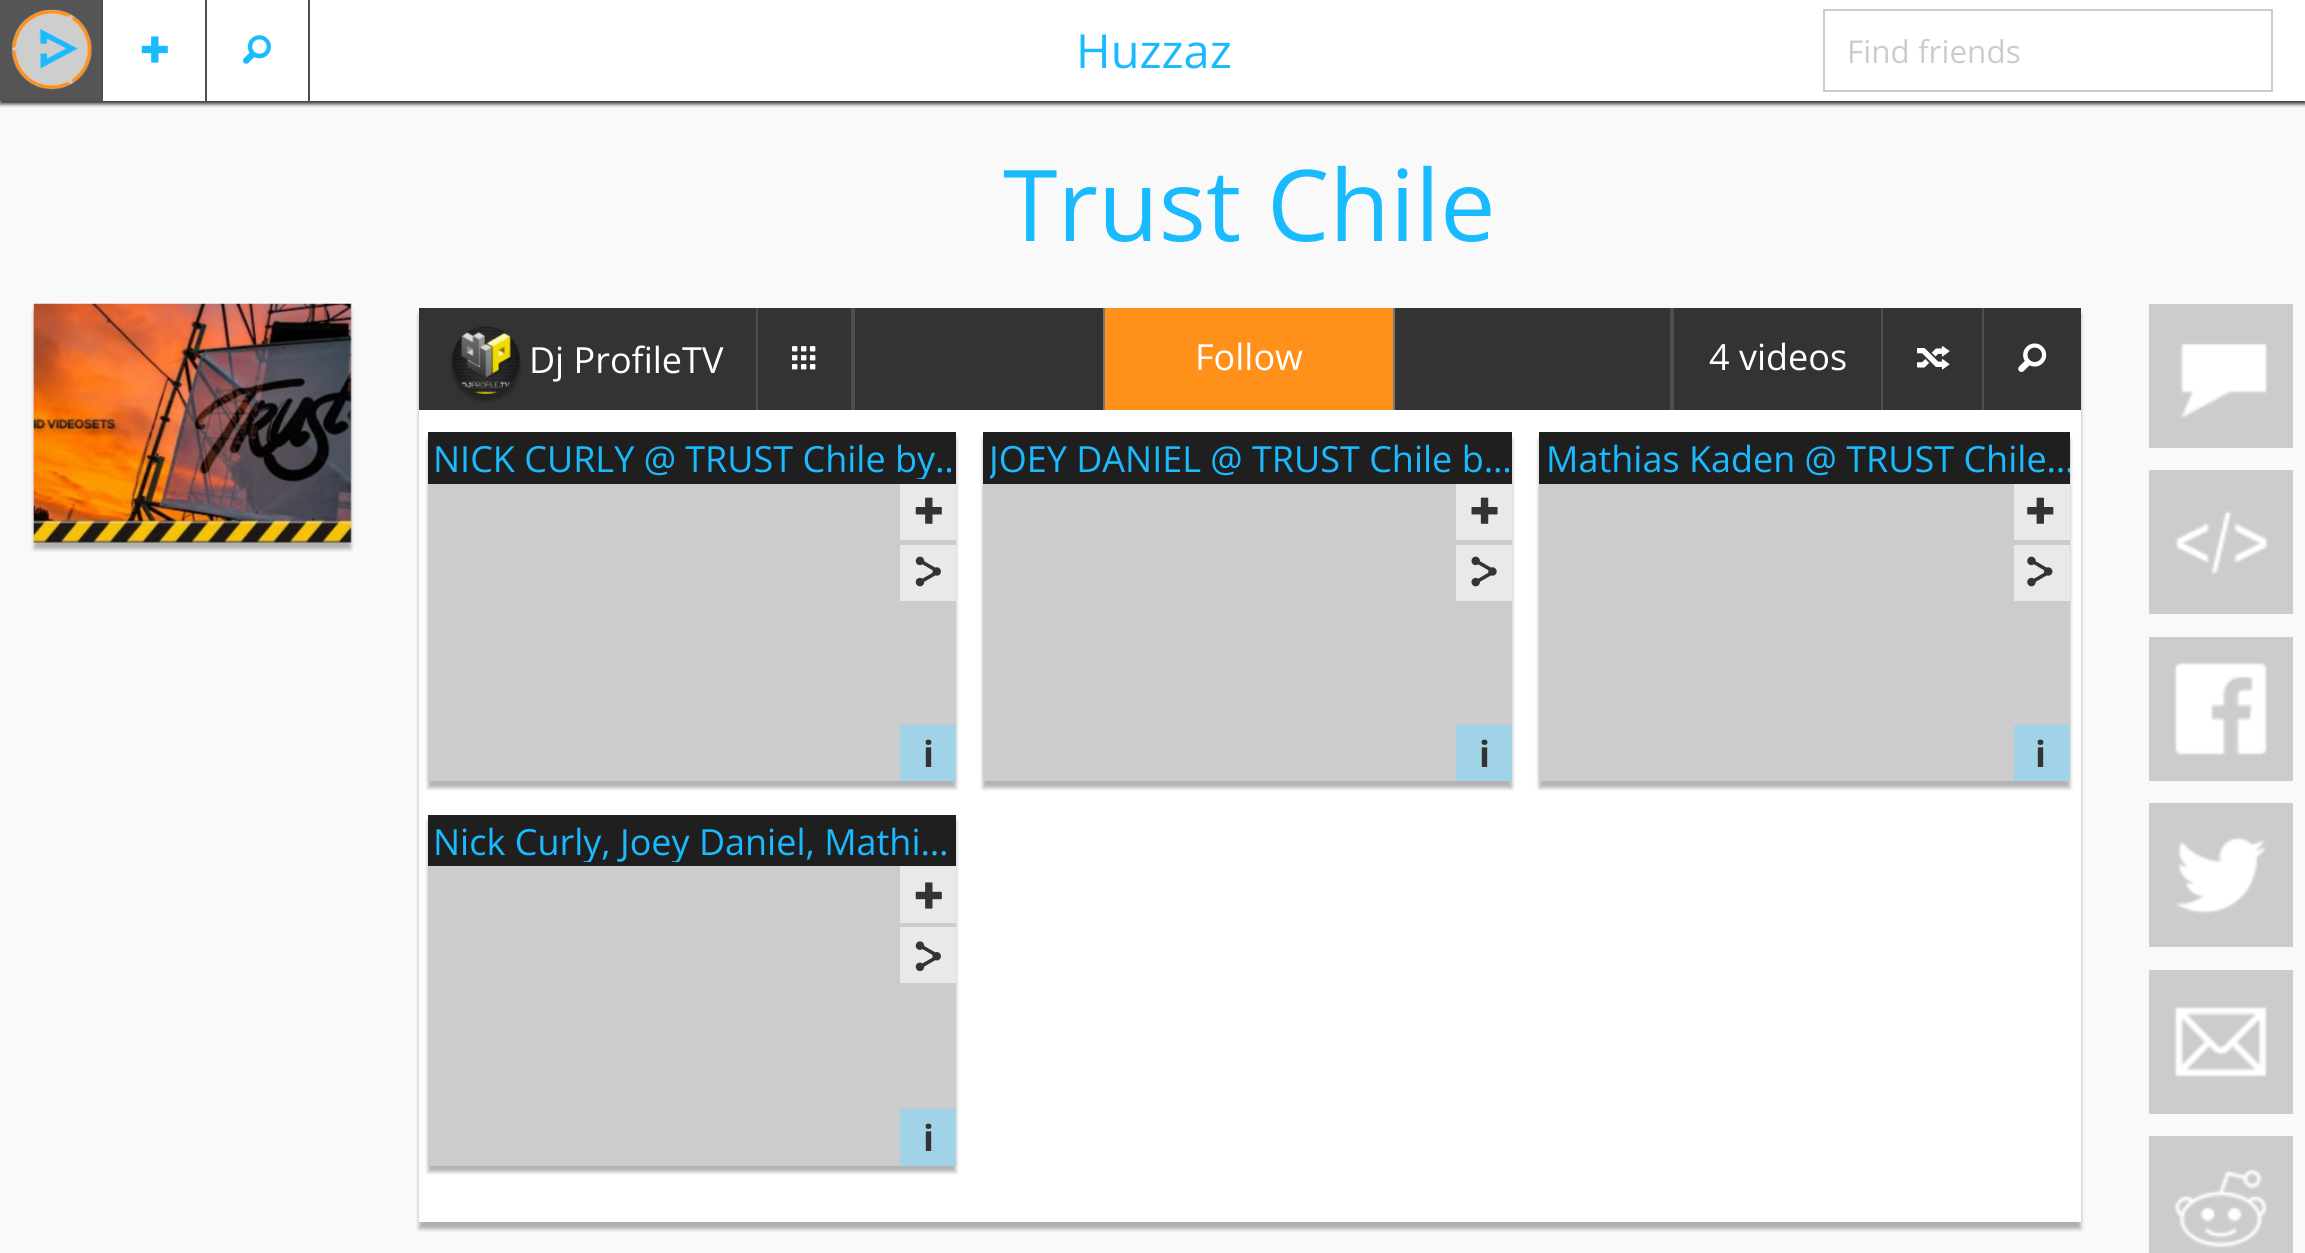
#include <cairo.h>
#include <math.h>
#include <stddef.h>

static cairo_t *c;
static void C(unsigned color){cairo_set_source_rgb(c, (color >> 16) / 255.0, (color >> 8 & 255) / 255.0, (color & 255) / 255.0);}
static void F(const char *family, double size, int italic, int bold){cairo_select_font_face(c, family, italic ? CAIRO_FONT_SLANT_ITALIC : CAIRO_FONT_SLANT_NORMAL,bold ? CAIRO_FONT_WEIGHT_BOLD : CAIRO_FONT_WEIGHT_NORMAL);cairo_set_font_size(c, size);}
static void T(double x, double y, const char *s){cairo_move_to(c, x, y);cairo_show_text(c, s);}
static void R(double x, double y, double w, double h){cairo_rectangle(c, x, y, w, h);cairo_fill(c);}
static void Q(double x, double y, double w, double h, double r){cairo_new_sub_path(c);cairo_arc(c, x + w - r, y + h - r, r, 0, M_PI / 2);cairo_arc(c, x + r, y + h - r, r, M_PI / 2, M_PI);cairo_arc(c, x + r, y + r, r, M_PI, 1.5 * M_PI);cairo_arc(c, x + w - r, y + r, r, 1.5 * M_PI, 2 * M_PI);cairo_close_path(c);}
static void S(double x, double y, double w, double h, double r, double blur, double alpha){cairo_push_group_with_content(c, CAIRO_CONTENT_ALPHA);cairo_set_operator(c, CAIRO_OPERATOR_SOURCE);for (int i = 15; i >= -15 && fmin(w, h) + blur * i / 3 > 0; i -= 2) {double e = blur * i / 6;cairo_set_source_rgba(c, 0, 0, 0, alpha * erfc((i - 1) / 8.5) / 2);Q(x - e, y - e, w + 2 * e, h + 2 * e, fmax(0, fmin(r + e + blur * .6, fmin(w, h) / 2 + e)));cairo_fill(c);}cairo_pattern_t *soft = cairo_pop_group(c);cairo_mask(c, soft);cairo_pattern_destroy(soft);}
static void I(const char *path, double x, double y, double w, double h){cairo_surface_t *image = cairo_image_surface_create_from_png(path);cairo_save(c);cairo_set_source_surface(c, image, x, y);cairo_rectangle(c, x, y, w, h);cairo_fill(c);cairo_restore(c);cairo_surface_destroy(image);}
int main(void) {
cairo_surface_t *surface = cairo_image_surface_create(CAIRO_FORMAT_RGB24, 2305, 1253);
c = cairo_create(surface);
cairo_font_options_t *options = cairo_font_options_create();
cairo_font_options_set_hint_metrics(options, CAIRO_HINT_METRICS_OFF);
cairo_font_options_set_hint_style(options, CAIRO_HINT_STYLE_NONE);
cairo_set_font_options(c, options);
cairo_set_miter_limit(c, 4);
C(0xf9f9fa);
cairo_paint(c);
C(0x333333);
S(0,2,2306,102,0,2,1);
C(0xffffff);
R(103,0,2202,101);
C(0x555555);
R(0,0,101,101);
I("1.png",11,9,81,81);
C(0x4e4e4e);
R(101,0,2,101);
I("2.png",141,36,27,27);
R(205,0,2,101);
I("3.png",243,35,28,29);
R(308,0,2,101);
F("Open Sans",47,0,0);
C(0x1abaff);
T(1076,68,"Huzzaz");
cairo_rectangle(c,1824,10,448,81);
C(0xcccccc);
cairo_stroke(c);
F("Open Sans",31.5,0,0);
T(1847,63,"Find friends");
C(0x000000);
S(34,311,317,238,0,2,.3);
I("4.png",33,303,319,240);
F("Open Sans",99,0,0);
C(0x1abaff);
T(1003,241,"Trust Chile");
C(0x000000);
S(419,315,1662,914,0,2,.3);
C(0xffffff);
R(419,410,1662,812);
C(0x333333);
R(419,308,1662,102);
C(0x000000);
S(452,333,68,68,34,2,.3);
I("5.png",452,326,68,68);
F("Open Sans",36,0,0);
C(0xffffff);
T(529,373,"Dj ProfileTV");
C(0x4e4e4e);
R(756,308,2,102);
I("6.png",792,346,24,24);
R(851,308,4,102);
R(1670,308,4,102);
C(0xffffff);
T(1709,370,"4 videos");
C(0x4e4e4e);
R(1881,308,2,102);
I("7.png",1917,346,33,24);
R(1982,308,2,102);
I("8.png",2018,343,29,29);
C(0x777777);
R(1393,308,2,102);
R(1103,308,2,102);
C(0xff901a);
R(1105,308,288,102);
C(0xffffff);
T(1195,370,"Follow");
C(0x000000);
S(428,439,528,349,0,2,.3);
C(0xcccccc);
R(428,484,528,297);
C(0x1f1f1f);
R(428,432,528,52);
cairo_save(c);
cairo_rectangle(c,434,439,522,40);
cairo_clip(c);
C(0x1abaff);
T(433,472,"NICK CURLY @ TRUST Chile by…");
cairo_restore(c);
C(0xe9e9e9);
R(900,484,56,56);
I("9.png",915,497,27,27);
R(900,545,56,56);
I("10.png",915,556,26,31);
C(0xa0d3e8);
R(900,725,56,56);
F("Open Sans",36,0,1);
C(0x333333);
T(923,767,"i");
C(0x000000);
S(983,439,529,349,0,2,.3);
C(0xcccccc);
R(983,484,529,297);
C(0x1f1f1f);
R(983,432,529,52);
cairo_save(c);
cairo_rectangle(c,990,439,522,40);
cairo_clip(c);
F("Open Sans",36,0,0);
C(0x1abaff);
T(989,472,"JOEY DANIEL @ TRUST Chile b…");
cairo_restore(c);
C(0xe9e9e9);
R(1456,484,56,56);
I("11.png",1471,497,27,27);
R(1456,545,56,56);
I("12.png",1471,556,26,31);
C(0xa0d3e8);
R(1456,725,56,56);
C(0x333333);
T(1479,767,"i");
C(0x000000);
S(1539,439,531,349,0,2,.3);
C(0xcccccc);
R(1539,484,531,297);
C(0x1f1f1f);
R(1539,432,531,52);
cairo_save(c);
cairo_rectangle(c,1546,439,524,40);
cairo_clip(c);
F("Open Sans",36,0,0);
C(0x1abaff);
T(1546,472,"Mathias Kaden @ TRUST Chile…");
cairo_restore(c);
C(0xe9e9e9);
R(2014,484,56,56);
I("13.png",2027,497,27,27);
R(2014,545,56,56);
I("14.png",2027,556,26,31);
C(0xa0d3e8);
R(2014,725,56,56);
C(0x333333);
T(2035,767,"i");
C(0x000000);
S(428,821,528,351,0,2,.3);
C(0xcccccc);
R(428,866,528,300);
C(0x1f1f1f);
R(428,815,528,51);
cairo_save(c);
cairo_rectangle(c,434,821,522,41);
cairo_clip(c);
F("Open Sans",36,0,0);
C(0x1abaff);
T(433,855,"Nick Curly, Joey Daniel, Mathi…");
cairo_restore(c);
C(0xe9e9e9);
R(900,866,56,57);
I("15.png",915,882,27,27);
R(900,927,56,56);
I("16.png",915,941,26,31);
C(0xa0d3e8);
R(900,1109,56,57);
C(0x333333);
T(923,1151,"i");
C(0xcccccc);
R(2149,304,144,144);
I("17.png",2180,343,88,76);
R(2149,470,144,144);
I("18.png",2175,510,93,65);
R(2149,637,144,144);
I("19.png",2174,662,93,93);
R(2149,803,144,144);
I("20.png",2176,837,90,77);
R(2149,970,144,144);
I("21.png",2174,1006,93,72);
R(2149,1136,144,117);
I("22.png",2174,1169,93,79);
cairo_surface_write_to_png(surface, "o.png");
cairo_font_options_destroy(options);
cairo_destroy(c);
cairo_surface_destroy(surface);
return 0;
}
